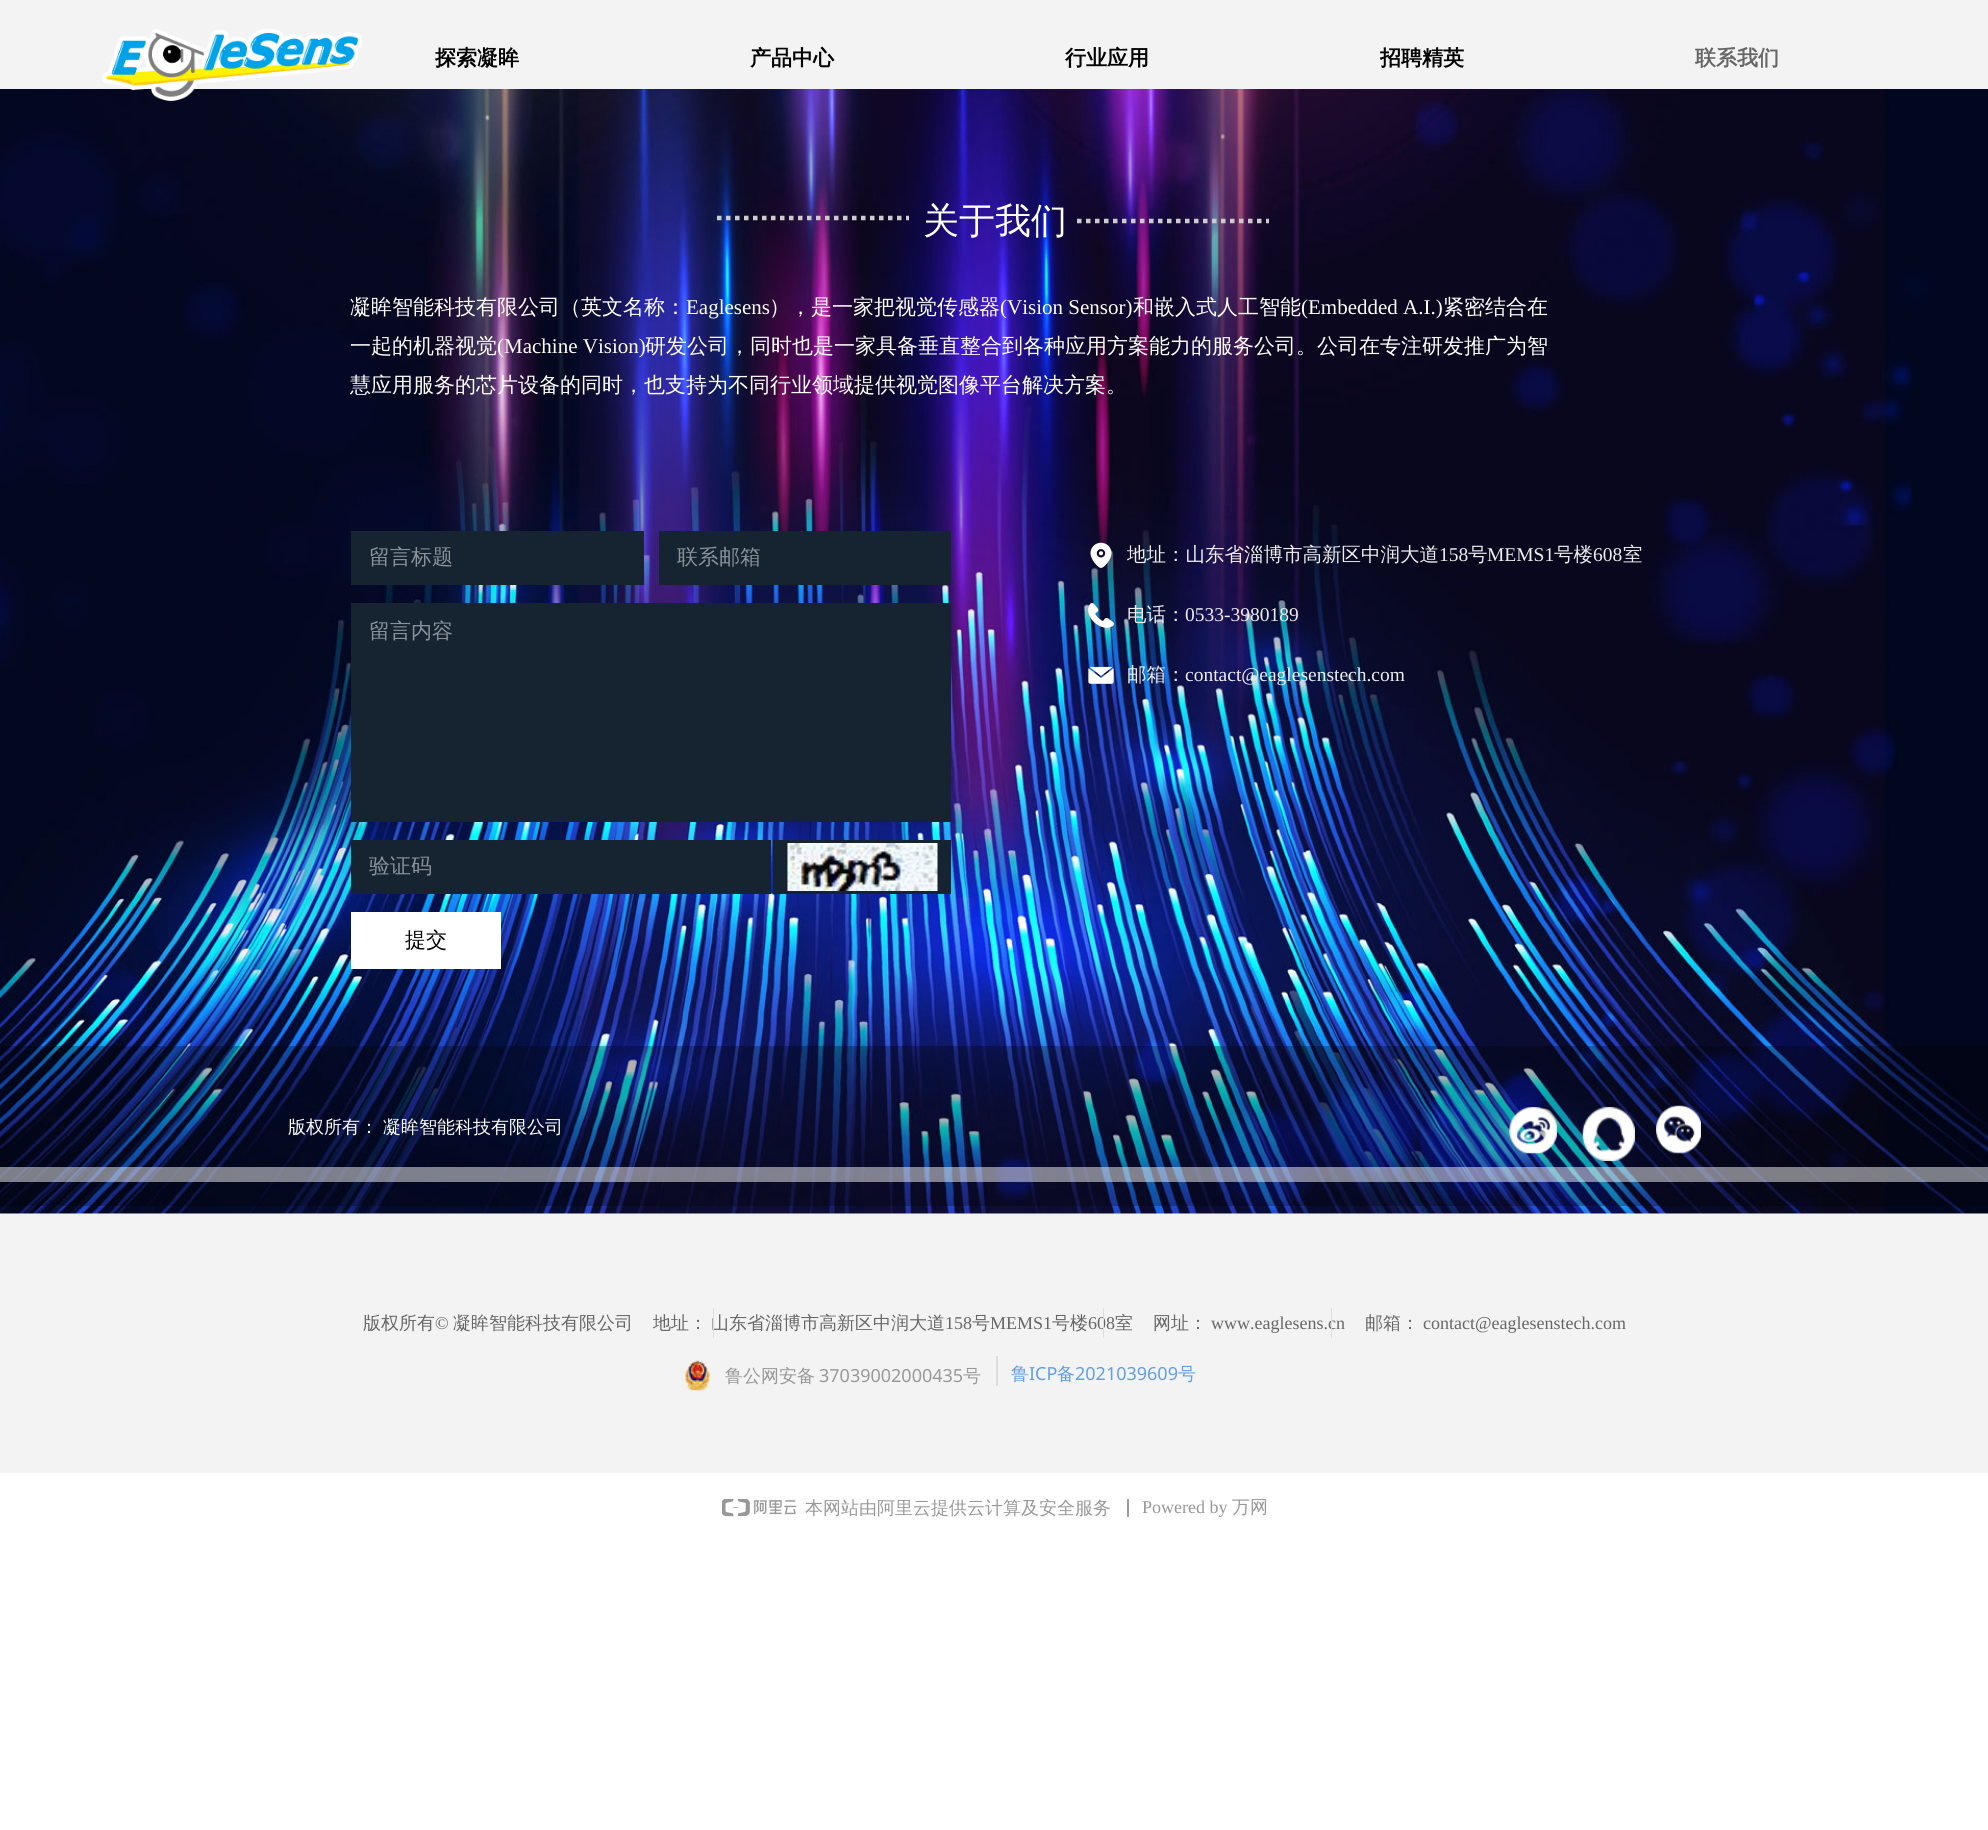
#include <cairo.h>
#include <math.h>
#include <stddef.h>

static cairo_t *c;
static void C(unsigned color){cairo_set_source_rgb(c, (color >> 16) / 255.0, (color >> 8 & 255) / 255.0, (color & 255) / 255.0);}
static void F(const char *family, double size, int italic, int bold){cairo_select_font_face(c, family, italic ? CAIRO_FONT_SLANT_ITALIC : CAIRO_FONT_SLANT_NORMAL,bold ? CAIRO_FONT_WEIGHT_BOLD : CAIRO_FONT_WEIGHT_NORMAL);cairo_set_font_size(c, size);}
static void T(double x, double y, const char *s){cairo_move_to(c, x, y);cairo_show_text(c, s);}
static void R(double x, double y, double w, double h){cairo_rectangle(c, x, y, w, h);cairo_fill(c);}
static void I(const char *path, double x, double y, double w, double h){cairo_surface_t *image = cairo_image_surface_create_from_png(path);cairo_save(c);cairo_set_source_surface(c, image, x, y);cairo_rectangle(c, x, y, w, h);cairo_fill(c);cairo_restore(c);cairo_surface_destroy(image);}
int main(void) {
cairo_surface_t *surface = cairo_image_surface_create(CAIRO_FORMAT_RGB24, 1988, 1830);
c = cairo_create(surface);
cairo_font_options_t *options = cairo_font_options_create();
cairo_font_options_set_hint_metrics(options, CAIRO_HINT_METRICS_OFF);
cairo_font_options_set_hint_style(options, CAIRO_HINT_STYLE_NONE);
cairo_set_font_options(c, options);
cairo_set_miter_limit(c, 4);
C(0xffffff);
cairo_paint(c);
C(0xf3f3f3);
R(0,0,1988,89);
I("2.png",0,89,1988,1125);
I("1.png",102,29,261,73);
F("WenQuanYi Zen Hei",21,0,1);
C(0x000000);
T(435,65,"探索凝眸");
T(750,65,"产品中心");
T(1065,65,"行业应用");
T(1380,65,"招聘精英");
C(0x666666);
T(1695,65,"联系我们");
cairo_new_path(c);
cairo_move_to(c,717,218);
cairo_line_to(c,909,218);
C(0xcccccc);
cairo_set_line_width(c,4.5);
cairo_set_dash(c,(double[]){4.5,4.5},2,0);
cairo_stroke(c);
F("WenQuanYi Zen Hei Medium",36,0,0);
C(0xffffff);
T(923,233,"关于我们");
cairo_new_path(c);
cairo_move_to(c,1077,221);
cairo_line_to(c,1269,221);
C(0xcccccc);
cairo_stroke(c);
F("WenQuanYi Zen Hei Medium",21,0,0);
C(0xffffff);
T(350,314,"凝眸智能科技有限公司（英文名称：");
F("Liberation Serif",21,0,0);
T(686,314,"Eaglesens");
F("WenQuanYi Zen Hei Medium",21,0,0);
T(769,314,"），是一家把视觉传感器");
F("Liberation Serif",21,0,0);
T(1000,314,"(Vision Sensor)");
F("WenQuanYi Zen Hei Medium",21,0,0);
T(1133,314,"和嵌入式人工智能");
F("Liberation Serif",21,0,0);
T(1301,314,"(Embedded A.I.)");
F("WenQuanYi Zen Hei Medium",21,0,0);
T(1443,314,"紧密结合在");
T(350,353,"一起的机器视觉");
F("Liberation Serif",21,0,0);
T(497,353,"(Machine Vision)");
F("WenQuanYi Zen Hei Medium",21,0,0);
T(645,353,"研发公司，同时也是一家具备垂直整合到各种应用方案能力的服务公司。公司在专注研发推广为智");
T(350,392,"慧应用服务的芯片设备的同时，也支持为不同行业领域提供视觉图像平台解决方案。");
C(0x162432);
R(351,531,293,54);
C(0x8b9299);
T(369,564,"留言标题");
C(0x162432);
R(659,531,292,54);
cairo_save(c);
cairo_rectangle(c,677,545,256,27);
cairo_clip(c);
C(0x8b9299);
T(677,564,"联系邮箱");
cairo_restore(c);
R(351,603,600,219);
C(0x8b9299);
T(369,638,"留言内容");
C(0x162432);
R(351,840,420,54);
C(0x8b9299);
T(369,873,"验证码");
C(0x162432);
R(773,840,178,54);
I("3.png",787,843,151,48);
C(0xffffff);
R(351,912,150,57);
C(0x000000);
T(405,947,"提交");
I("4.png",1090,542,22,26);
F("WenQuanYi Zen Hei Medium",19.5,0,0);
C(0xeeeeee);
T(1127,561,"地址：山东省淄博市高新区中润大道");
F("Liberation Serif",19.5,0,0);
T(1439,561,"158");
F("WenQuanYi Zen Hei Medium",19.5,0,0);
T(1468,561,"号");
F("Liberation Serif",19.5,0,0);
T(1487,561,"MEMS1");
F("WenQuanYi Zen Hei Medium",19.5,0,0);
T(1554,561,"号楼");
F("Liberation Serif",19.5,0,0);
T(1593,561,"608");
F("WenQuanYi Zen Hei Medium",19.5,0,0);
T(1623,561,"室");
I("5.png",1088,603,26,25);
T(1127,621,"电话：");
F("Liberation Serif",19.5,0,0);
T(1185,621,"0533-3980189");
I("6.png",1088,666,26,18);
F("WenQuanYi Zen Hei Medium",19.5,0,0);
T(1127,681,"邮箱：");
F("Liberation Serif",19.5,0,0);
T(1185,681,"contact@eaglesenstech.com");
cairo_set_source_rgba(c,0,0,0,0.3);
R(0,1046,1988,160);
F("WenQuanYi Zen Hei Medium",18,0,0);
C(0xffffff);
T(288,1133,"版权所有：");
T(383,1133,"凝眸智能科技有限公司");
I("7.png",1509,1107,48,47);
I("8.png",1582,1107,53,54);
I("9.png",1656,1105,45,49);
cairo_set_source_rgba(c,0.953,0.953,0.953,0.51);
R(0,1167,1988,15);
C(0xf3f3f3);
R(0,1214,1988,259);
C(0x666666);
T(711,1329,"山东省淄博市高新区中润大道");
C(0xdddddd);
R(713,1308,1,30);
F("Liberation Serif",18,0,0);
C(0x666666);
T(1088,1329,"608");
C(0xdddddd);
R(1103,1308,1,30);
C(0x666666);
T(1211,1329,"www.eaglesens.cn");
C(0xdddddd);
R(1331,1308,1,30);
F("WenQuanYi Zen Hei Medium",18,0,0);
C(0x666666);
T(363,1329,"版权所有");
F("Liberation Serif",18,0,0);
T(435,1329,"©");
F("WenQuanYi Zen Hei Medium",18,0,0);
T(453,1329,"凝眸智能科技有限公司");
T(653,1329,"地址：");
F("Liberation Serif",18,0,0);
T(945,1329,"158");
F("WenQuanYi Zen Hei Medium",18,0,0);
T(972,1329,"号");
F("Liberation Serif",18,0,0);
T(990,1329,"MEMS1");
F("WenQuanYi Zen Hei Medium",18,0,0);
T(1052,1329,"号楼");
T(1115,1329,"室");
T(1153,1329,"网址：");
T(1365,1329,"邮箱：");
F("Liberation Serif",18,0,0);
T(1423,1329,"contact@eaglesenstech.com");
I("10.png",685,1360,25,31);
F("WenQuanYi Zen Hei Medium",18,0,0);
C(0x989898);
T(725,1382,"鲁公网安备");
F("Noto Sans",18,0,0);
T(819,1382,"37039002000435");
F("WenQuanYi Zen Hei Medium",18,0,0);
T(963,1382,"号");
C(0xdddddd);
R(996,1356,2,30);
C(0x609ee9);
T(1011,1380,"鲁");
F("Noto Sans",18,0,0);
T(1029,1380,"ICP");
F("WenQuanYi Zen Hei Medium",18,0,0);
T(1057,1380,"备");
F("Noto Sans",18,0,0);
T(1075,1380,"2021039609");
F("WenQuanYi Zen Hei Medium",18,0,0);
T(1178,1380,"号");
I("11.png",722,1499,75,18);
C(0x989898);
T(805,1514,"本网站由阿里云提供云计算及安全服务");
R(1127,1499,2,18);
F("Liberation Serif",18,0,0);
T(1142,1513,"Powered by");
F("WenQuanYi Zen Hei Medium",18,0,0);
T(1232,1513,"万网");
cairo_surface_write_to_png(surface, "o.png");
cairo_font_options_destroy(options);
cairo_destroy(c);
cairo_surface_destroy(surface);
return 0;
}
